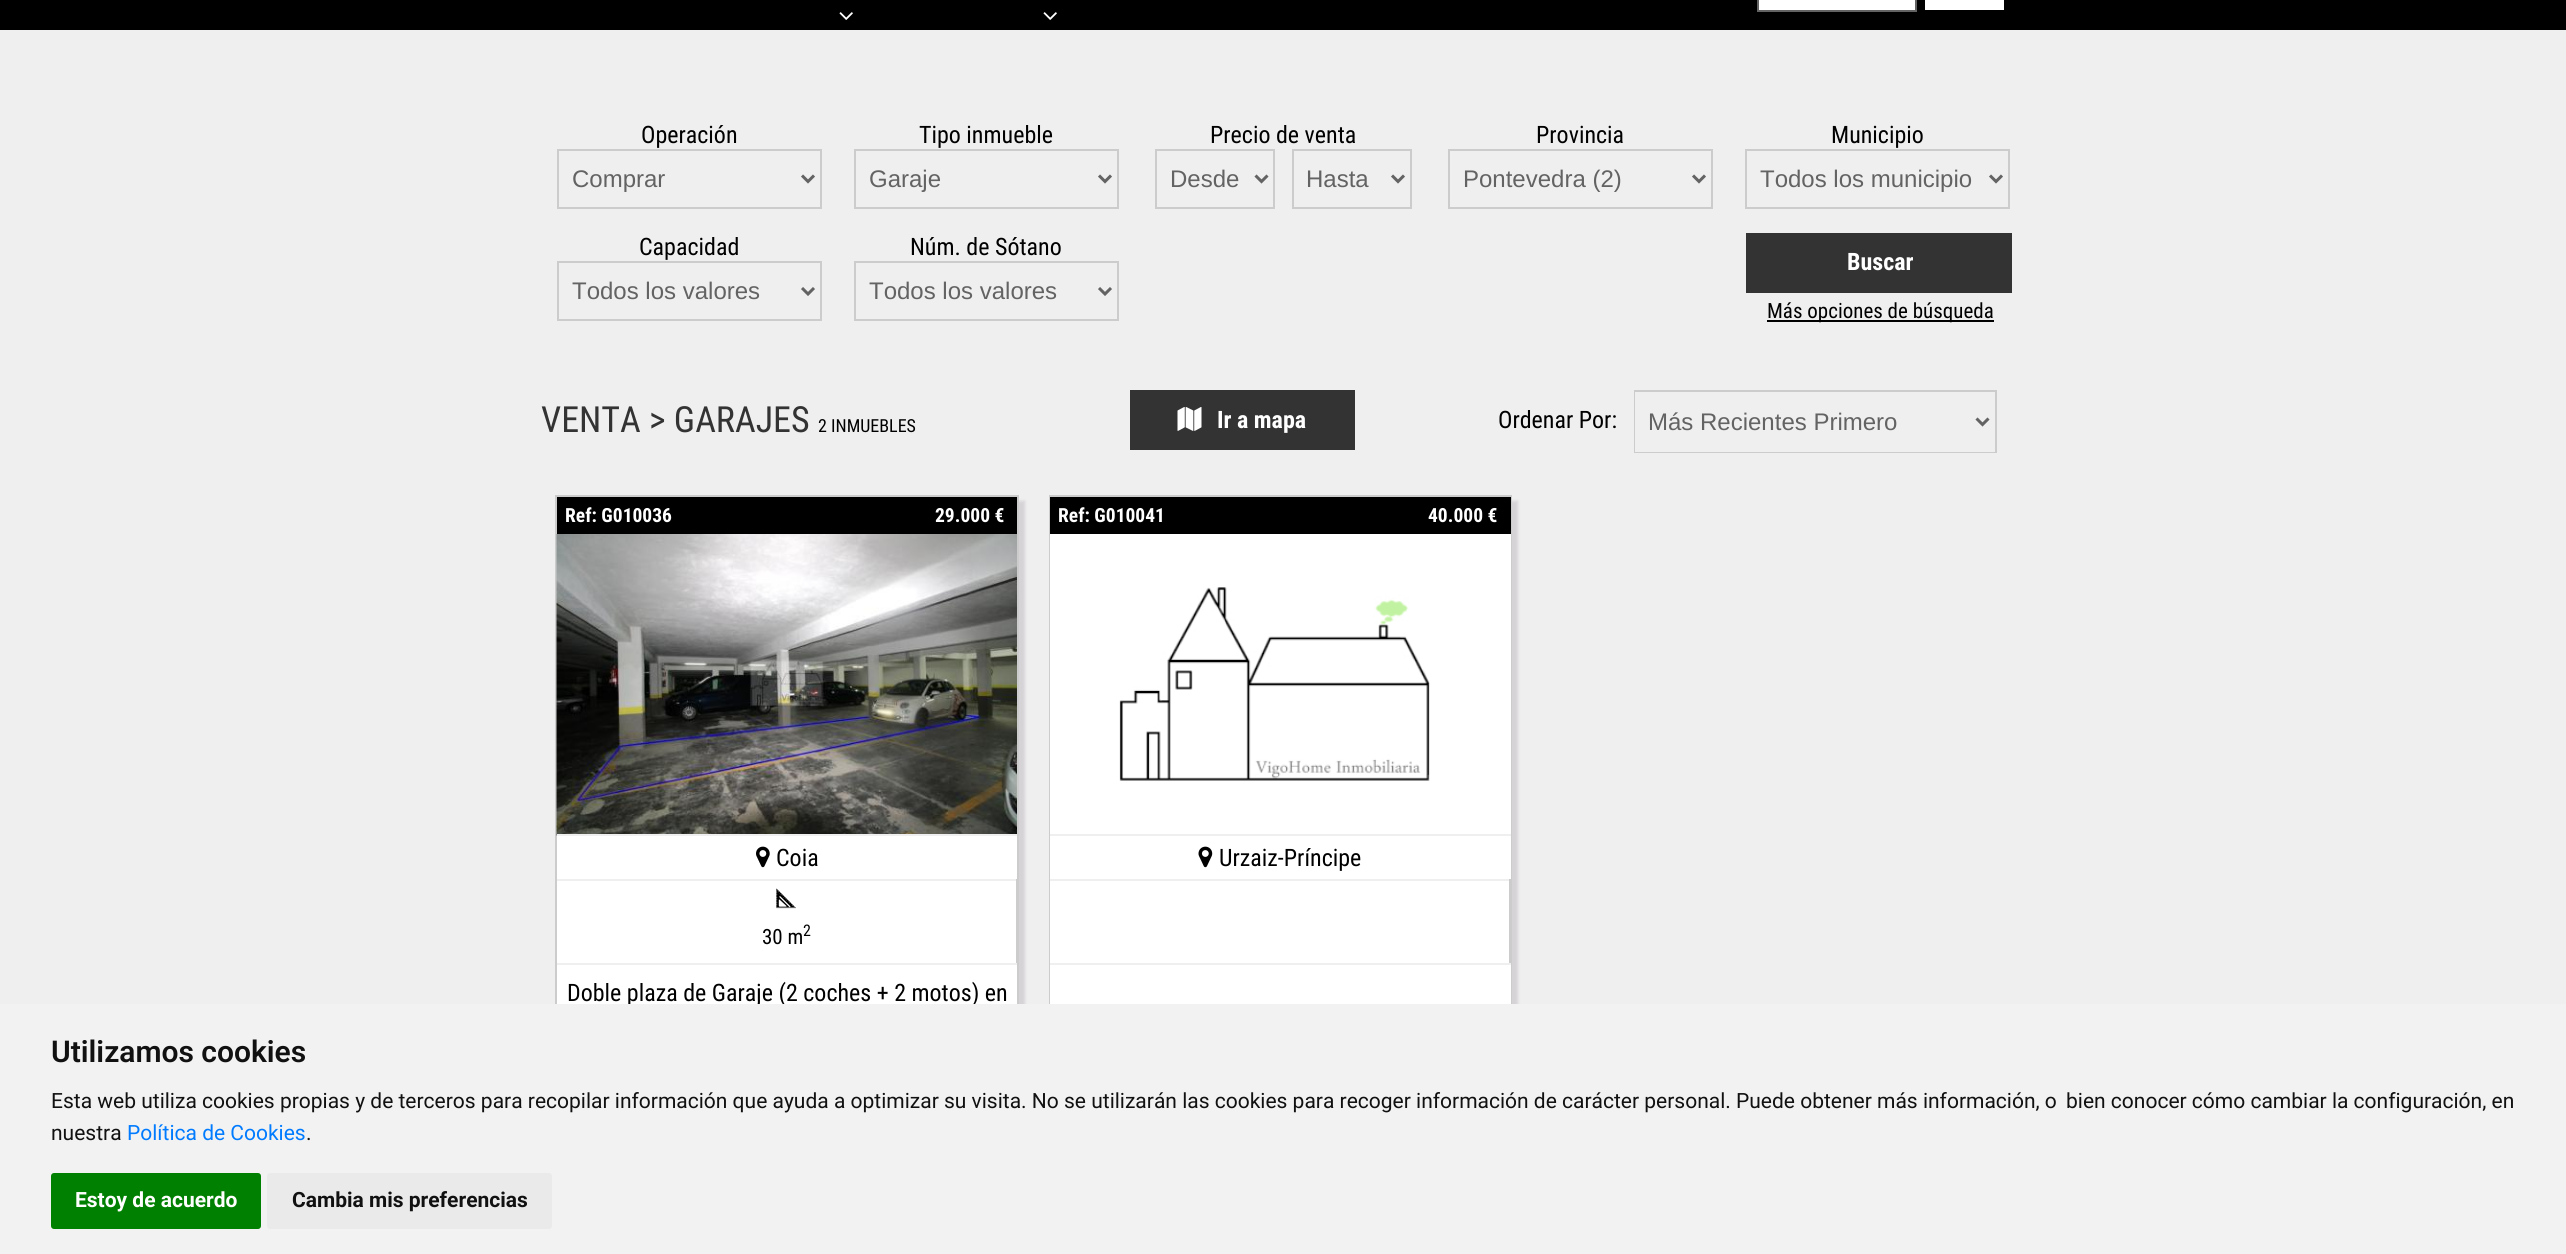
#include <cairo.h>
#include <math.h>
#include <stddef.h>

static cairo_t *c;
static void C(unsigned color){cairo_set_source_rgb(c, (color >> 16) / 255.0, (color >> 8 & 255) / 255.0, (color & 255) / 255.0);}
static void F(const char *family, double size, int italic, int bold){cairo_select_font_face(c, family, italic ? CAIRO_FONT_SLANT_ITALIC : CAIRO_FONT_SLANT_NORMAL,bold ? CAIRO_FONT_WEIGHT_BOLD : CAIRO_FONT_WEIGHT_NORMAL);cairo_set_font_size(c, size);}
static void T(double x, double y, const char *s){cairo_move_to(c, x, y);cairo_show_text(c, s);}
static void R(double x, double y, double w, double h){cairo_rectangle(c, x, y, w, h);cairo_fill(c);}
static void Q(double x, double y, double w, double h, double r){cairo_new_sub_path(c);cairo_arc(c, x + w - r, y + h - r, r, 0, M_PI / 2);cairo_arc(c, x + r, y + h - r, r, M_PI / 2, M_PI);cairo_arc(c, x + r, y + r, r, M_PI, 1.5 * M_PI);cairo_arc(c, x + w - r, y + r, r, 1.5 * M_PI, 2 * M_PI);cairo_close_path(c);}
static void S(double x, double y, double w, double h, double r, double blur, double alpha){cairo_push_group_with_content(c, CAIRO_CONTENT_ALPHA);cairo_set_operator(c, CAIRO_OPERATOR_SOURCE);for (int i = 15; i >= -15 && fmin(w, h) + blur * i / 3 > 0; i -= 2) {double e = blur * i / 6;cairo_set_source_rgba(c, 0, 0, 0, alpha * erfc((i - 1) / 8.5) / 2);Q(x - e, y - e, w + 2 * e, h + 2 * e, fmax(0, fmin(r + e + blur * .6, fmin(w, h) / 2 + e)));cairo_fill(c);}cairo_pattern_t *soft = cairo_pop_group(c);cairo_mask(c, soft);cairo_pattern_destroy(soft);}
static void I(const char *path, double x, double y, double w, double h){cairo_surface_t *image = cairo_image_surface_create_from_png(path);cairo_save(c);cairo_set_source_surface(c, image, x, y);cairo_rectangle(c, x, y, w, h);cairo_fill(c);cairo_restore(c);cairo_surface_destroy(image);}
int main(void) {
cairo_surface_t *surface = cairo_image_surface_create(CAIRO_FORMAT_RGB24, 2566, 1254);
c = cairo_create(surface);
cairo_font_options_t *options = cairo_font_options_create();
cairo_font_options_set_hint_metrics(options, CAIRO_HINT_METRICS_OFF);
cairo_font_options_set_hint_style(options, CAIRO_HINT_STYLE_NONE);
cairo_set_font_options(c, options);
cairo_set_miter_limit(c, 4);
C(0xefefef);
cairo_paint(c);
C(0x000000);
R(0,0,2566,30);
C(0xffffff);
cairo_rectangle(c,1758,-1,158,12);
cairo_fill_preserve(c);
C(0x636363);
cairo_stroke(c);
C(0xffffff);
R(1925,0,79,10);
I("1.png",839,12,14,8);
I("1.png",1043,12,14,8);
F("Roboto Condensed",24,0,0);
C(0x000000);
T(641,143,"Operación");
cairo_rectangle(c,558,150,263,58);
C(0xcccccc);
cairo_stroke(c);
cairo_new_path(c);
cairo_move_to(c,802,175.5);
cairo_line_to(c,808,181.5);
cairo_line_to(c,814,175.5);
C(0x636363);
cairo_set_line_width(c,3);
cairo_stroke(c);
F("Liberation Sans",24,0,0);
T(572,187,"Comprar");
F("Roboto Condensed",24,0,0);
C(0x000000);
T(919,143,"Tipo inmueble");
cairo_rectangle(c,855,150,263,58);
C(0xcccccc);
cairo_set_line_width(c,2);
cairo_stroke(c);
cairo_new_path(c);
cairo_move_to(c,1099,175.5);
cairo_line_to(c,1105,181.5);
cairo_line_to(c,1111,175.5);
C(0x636363);
cairo_set_line_width(c,3);
cairo_stroke(c);
F("Liberation Sans",24,0,0);
T(869,187,"Garaje");
F("Roboto Condensed",24,0,0);
C(0x000000);
T(1210,143,"Precio de venta");
cairo_rectangle(c,1156,150,118,58);
C(0xcccccc);
cairo_set_line_width(c,2);
cairo_stroke(c);
cairo_new_path(c);
cairo_move_to(c,1255.5,175.5);
cairo_line_to(c,1261.5,181.5);
cairo_line_to(c,1267.5,175.5);
C(0x636363);
cairo_set_line_width(c,3);
cairo_stroke(c);
F("Liberation Sans",24,0,0);
T(1170,187,"Desde");
cairo_rectangle(c,1293,150,118,58);
C(0xcccccc);
cairo_set_line_width(c,2);
cairo_stroke(c);
cairo_new_path(c);
cairo_move_to(c,1392,175.5);
cairo_line_to(c,1398,181.5);
cairo_line_to(c,1404,175.5);
C(0x636363);
cairo_set_line_width(c,3);
cairo_stroke(c);
T(1306,187,"Hasta");
F("Roboto Condensed",24,0,0);
C(0x000000);
T(1536,143,"Provincia");
cairo_rectangle(c,1449,150,263,58);
C(0xcccccc);
cairo_set_line_width(c,2);
cairo_stroke(c);
cairo_new_path(c);
cairo_move_to(c,1693,175.5);
cairo_line_to(c,1699,181.5);
cairo_line_to(c,1705,175.5);
C(0x636363);
cairo_set_line_width(c,3);
cairo_stroke(c);
F("Liberation Sans",24,0,0);
T(1463,187,"Pontevedra (2)");
F("Roboto Condensed",24,0,0);
C(0x000000);
T(1831,143,"Municipio");
cairo_rectangle(c,1746,150,263,58);
C(0xcccccc);
cairo_set_line_width(c,2);
cairo_stroke(c);
cairo_new_path(c);
cairo_move_to(c,1990,175.5);
cairo_line_to(c,1996,181.5);
cairo_line_to(c,2002,175.5);
C(0x636363);
cairo_set_line_width(c,3);
cairo_stroke(c);
F("Liberation Sans",24,0,0);
T(1760,187,"Todos los municipio");
F("Roboto Condensed",24,0,0);
C(0x000000);
T(639,255,"Capacidad");
cairo_rectangle(c,558,262,263,58);
C(0xcccccc);
cairo_set_line_width(c,2);
cairo_stroke(c);
cairo_new_path(c);
cairo_move_to(c,802,288);
cairo_line_to(c,808,294);
cairo_line_to(c,814,288);
C(0x636363);
cairo_set_line_width(c,3);
cairo_stroke(c);
F("Liberation Sans",24,0,0);
T(572,299,"Todos los valores");
F("Roboto Condensed",24,0,0);
C(0x000000);
T(910,255,"Núm. de Sótano");
cairo_rectangle(c,855,262,263,58);
C(0xcccccc);
cairo_set_line_width(c,2);
cairo_stroke(c);
cairo_new_path(c);
cairo_move_to(c,1099,288);
cairo_line_to(c,1105,294);
cairo_line_to(c,1111,288);
C(0x636363);
cairo_set_line_width(c,3);
cairo_stroke(c);
F("Liberation Sans",24,0,0);
T(869,299,"Todos los valores");
C(0x333333);
R(1746,233,266,60);
F("Roboto Condensed",24,0,1);
C(0xffffff);
T(1847,270,"Buscar");
C(0x000000);
R(1767,320,227,2);
F("Roboto Condensed",21,0,0);
T(1767,318,"Más opciones de búsqueda");
F("Roboto Condensed",36,0,0);
C(0x333333);
T(541,432,"VENTA > GARAJES");
F("Roboto Condensed",18,0,0);
C(0x000000);
T(818,432,"2 INMUEBLES");
C(0x333333);
R(1130,390,225,60);
I("2.png",1177,407,25,24);
F("Roboto Condensed",24,0,1);
C(0xffffff);
T(1217,428,"Ir a mapa");
F("Roboto Condensed",24,0,0);
C(0x000000);
T(1498,428,"Ordenar Por:");
cairo_rectangle(c,1635,391,361,61);
C(0xcccccc);
cairo_set_line_width(c,2);
cairo_stroke(c);
C(0xefefef);
R(1635,392,360,60);
cairo_new_path(c);
cairo_move_to(c,1976.5,418.5);
cairo_line_to(c,1982.5,424.5);
cairo_line_to(c,1988.5,418.5);
C(0x636363);
cairo_set_line_width(c,3);
cairo_stroke(c);
F("Liberation Sans",24,0,0);
T(1648,430,"Más Recientes Primero");
C(0xd6d3d6);
S(561,501,464,561,0,1.5,1);
C(0xcccccc);
R(555,495,464,509);
C(0x000000);
R(557,497,460,37);
F("Roboto Condensed",19.5,0,1);
C(0xffffff);
T(565,522,"Ref: G010036");
T(935,522,"29.000 €");
I("3.png",556,534,461,302);
C(0xefefef);
R(557,834,460,2);
C(0xffffff);
R(557,836,460,43);
I("4.png",756,846,14,22);
F("Roboto Condensed",24,0,0);
C(0x000000);
T(776,866,"Coia");
C(0xffffff);
R(557,881,459,82);
C(0xefefef);
R(557,879,459,2);
I("5.png",776,888,20,21);
F("Roboto Condensed",21,0,0);
C(0x000000);
T(762,944,"30 m");
F("Roboto Condensed",16,0,0);
T(803,936,"2");
C(0xffffff);
R(557,965,460,39);
C(0xefefef);
R(557,963,460,2);
F("Roboto Condensed",24,0,0);
C(0x000000);
T(567,1001,"Doble plaza de Garaje (2 coches + 2 motos) en");
C(0xd6d3d6);
S(1055,501,463,561,0,1.5,1);
C(0xcccccc);
R(1049,495,463,509);
C(0x000000);
R(1050,497,461,37);
F("Roboto Condensed",19.5,0,1);
C(0xffffff);
T(1058,522,"Ref: G010041");
T(1428,522,"40.000 €");
R(1050,534,461,300);
I("6.png",1119,587,311,194);
C(0xefefef);
R(1050,834,461,2);
C(0xffffff);
R(1050,836,461,43);
I("7.png",1198,846,15,22);
F("Roboto Condensed",24,0,0);
C(0x000000);
T(1219,866,"Urzaiz-Príncipe");
C(0xffffff);
R(1050,881,459,82);
C(0xefefef);
R(1050,879,459,2);
C(0xffffff);
R(1050,965,461,39);
C(0xefefef);
R(1050,963,461,2);
C(0xf2f2f2);
R(0,1004,2566,250);
F("Roboto SemiBold",30,0,0);
C(0x111111);
T(51,1062,"Utilizamos cookies");
F("Roboto",21,0,0);
T(51,1108,"Esta web utiliza cookies propias y de terceros para recopilar información que ayuda a optimizar su visita. No se utilizarán las cookies para recoger información de carácter personal. Puede obtener más información, o");
T(2066,1108,"bien conocer cómo cambiar la configuración, en");
T(51,1140,"nuestra");
C(0x007bff);
T(127,1140,"Política de Cookies");
C(0x111111);
T(306,1140,".");
C(0x008000);
Q(51,1173,210,56,3);
cairo_fill(c);
F("Roboto",21,0,1);
C(0xffffff);
T(75,1207,"Estoy de acuerdo");
C(0xeaeaea);
Q(267,1173,285,56,3);
cairo_fill(c);
C(0x111111);
T(292,1207,"Cambia mis preferencias");
cairo_surface_write_to_png(surface, "o.png");
cairo_font_options_destroy(options);
cairo_destroy(c);
cairo_surface_destroy(surface);
return 0;
}
